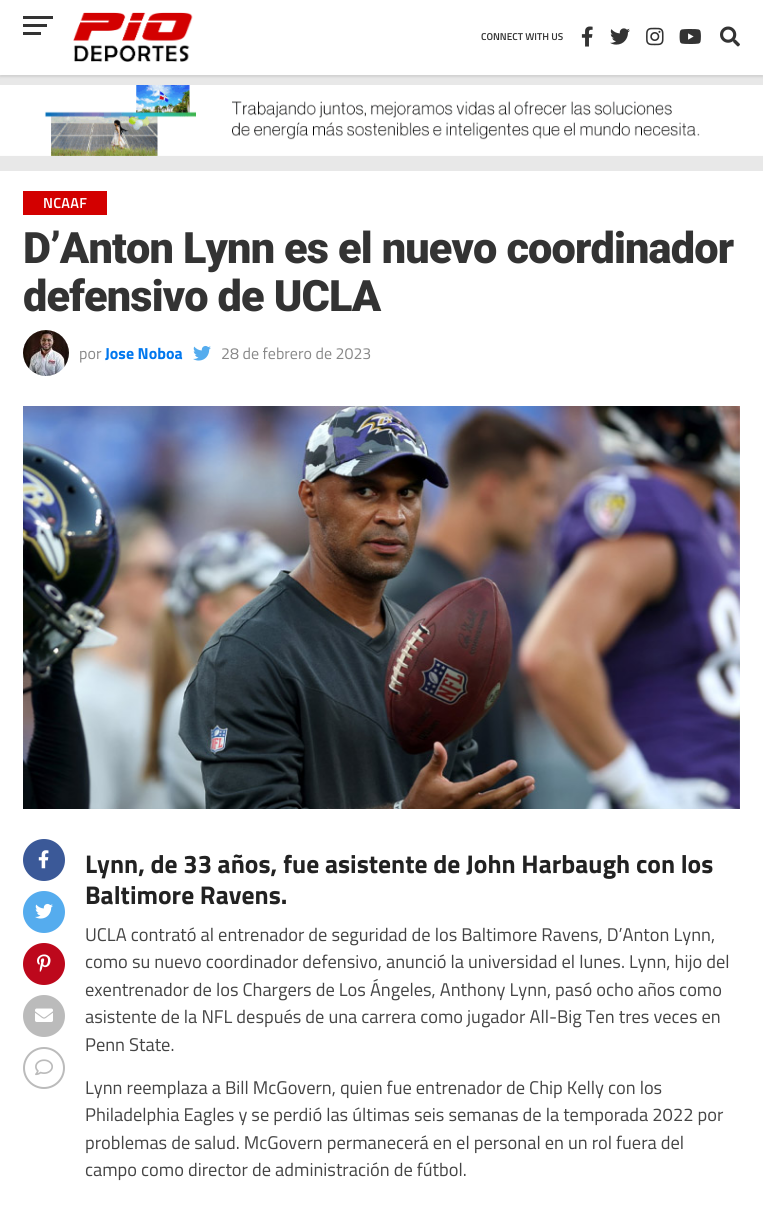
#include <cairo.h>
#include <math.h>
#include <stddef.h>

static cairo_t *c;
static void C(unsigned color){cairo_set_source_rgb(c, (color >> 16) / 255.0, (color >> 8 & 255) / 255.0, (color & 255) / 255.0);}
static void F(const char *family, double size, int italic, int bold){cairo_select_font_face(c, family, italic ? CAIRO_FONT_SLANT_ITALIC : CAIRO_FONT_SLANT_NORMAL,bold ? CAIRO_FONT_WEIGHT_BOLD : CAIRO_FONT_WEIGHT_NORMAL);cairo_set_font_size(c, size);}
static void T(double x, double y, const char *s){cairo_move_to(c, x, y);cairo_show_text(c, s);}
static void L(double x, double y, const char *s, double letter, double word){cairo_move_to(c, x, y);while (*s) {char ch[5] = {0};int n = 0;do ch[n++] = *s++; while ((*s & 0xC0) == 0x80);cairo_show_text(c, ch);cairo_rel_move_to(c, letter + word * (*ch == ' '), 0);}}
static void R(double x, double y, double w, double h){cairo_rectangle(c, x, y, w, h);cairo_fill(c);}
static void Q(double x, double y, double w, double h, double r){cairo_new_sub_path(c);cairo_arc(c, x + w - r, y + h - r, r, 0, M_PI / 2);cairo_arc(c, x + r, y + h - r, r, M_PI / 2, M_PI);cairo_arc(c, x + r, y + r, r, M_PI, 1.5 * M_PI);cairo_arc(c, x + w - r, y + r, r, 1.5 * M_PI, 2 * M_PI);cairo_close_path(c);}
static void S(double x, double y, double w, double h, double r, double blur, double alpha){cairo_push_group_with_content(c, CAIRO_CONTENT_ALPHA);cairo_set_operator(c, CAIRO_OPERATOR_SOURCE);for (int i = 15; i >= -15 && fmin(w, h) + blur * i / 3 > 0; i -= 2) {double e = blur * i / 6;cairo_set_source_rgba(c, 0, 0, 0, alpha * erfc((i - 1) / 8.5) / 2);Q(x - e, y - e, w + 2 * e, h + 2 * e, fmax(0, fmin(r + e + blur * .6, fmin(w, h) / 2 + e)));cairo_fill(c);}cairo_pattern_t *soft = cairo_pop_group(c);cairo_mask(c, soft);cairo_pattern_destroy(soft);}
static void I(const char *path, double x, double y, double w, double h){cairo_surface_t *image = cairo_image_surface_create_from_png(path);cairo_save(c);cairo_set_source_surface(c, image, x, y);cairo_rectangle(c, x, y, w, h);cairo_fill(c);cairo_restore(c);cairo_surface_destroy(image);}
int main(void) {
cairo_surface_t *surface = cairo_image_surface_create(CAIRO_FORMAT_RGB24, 763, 1221);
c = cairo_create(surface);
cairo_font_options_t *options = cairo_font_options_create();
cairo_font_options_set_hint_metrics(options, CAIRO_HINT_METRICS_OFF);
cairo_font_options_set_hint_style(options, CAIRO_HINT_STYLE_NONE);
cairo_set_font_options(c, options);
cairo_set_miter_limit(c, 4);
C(0xe8e8e8);
cairo_paint(c);
C(0x000000);
S(0,2,763,75,0,1,.1);
C(0xffffff);
R(0,0,763,75);
C(0x333333);
R(23,16,30,3);
R(23,24,24,3);
R(23,32,18,3);
I("1.png",73,12,120,50);
F("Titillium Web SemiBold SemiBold",10,0,0);
T(481,40,"CONNECT WITH US");
I("2.png",581,26,12,21);
I("3.png",610,28,20,17);
I("4.png",646,27,18,19);
I("5.png",679,29,22,15);
I("6.png",720,26,20,21);
I("7.png",0,85,763,71);
C(0xffffff);
R(0,171,763,1050);
C(0xd30000);
R(23,191,84,24);
F("Titillium Web SemiBold SemiBold",14.5,0,0);
C(0xffffff);
L(43,208,"NCAAF",.25,0);
F("Roboto Black",43.25,0,0);
C(0x333333);
L(23,263,"D’Anton Lynn es el nuevo coordinador",-.85,0);
L(23,311,"defensivo de UCLA",-.85,0);
I("8.png",23,330,46,46);
F("Titillium Web",16,0,0);
C(0x888888);
T(79,359,"por");
F("Titillium Web",16,0,1);
C(0x0077ee);
T(105,359,"Jose Noboa");
I("9.png",193,345,18,16);
F("Titillium Web",16,0,0);
C(0x888888);
T(221,359,"28 de febrero de 2023");
I("10.png",23,406,717,403);
C(0x3b5998);
cairo_arc(c,44,860,21,0,2 * M_PI);
cairo_fill(c);
I("11.png",38,850,11,19);
C(0x55acee);
cairo_arc(c,44,912,21,0,2 * M_PI);
cairo_fill(c);
I("12.png",35,903,18,16);
C(0xbd081c);
cairo_arc(c,44,964,21,0,2 * M_PI);
cairo_fill(c);
I("13.png",37,954,14,18);
C(0xbbbbbb);
cairo_arc(c,44,1016,21,0,2 * M_PI);
cairo_fill(c);
I("14.png",35,1008,18,14);
cairo_arc(c,44,1068,20,0,2 * M_PI);
cairo_stroke(c);
I("15.png",35,1059,18,17);
F("Titillium Web",25.6,0,1);
C(0x222222);
T(85,873,"Lynn, de 33 años, fue asistente de John Harbaugh con los");
T(85,904,"Baltimore Ravens.");
F("Titillium Web",18.4,0,0);
C(0x444444);
T(85,941,"UCLA contrató al entrenador de seguridad de los Baltimore Ravens, D’Anton Lynn,");
T(85,968,"como su nuevo coordinador defensivo, anunció la universidad el lunes. Lynn, hijo del");
T(85,996,"exentrenador de los Chargers de Los Ángeles, Anthony Lynn, pasó ocho años como");
T(85,1023,"asistente de la NFL después de una carrera como jugador All-Big Ten tres veces en");
T(85,1051,"Penn State.");
T(85,1094,"Lynn reemplaza a Bill McGovern, quien fue entrenador de Chip Kelly con los");
T(85,1121,"Philadelphia Eagles y se perdió las últimas seis semanas de la temporada 2022 por");
T(85,1149,"problemas de salud. McGovern permanecerá en el personal en un rol fuera del");
T(85,1176,"campo como director de administración de fútbol.");
cairo_surface_write_to_png(surface, "o.png");
cairo_font_options_destroy(options);
cairo_destroy(c);
cairo_surface_destroy(surface);
return 0;
}
